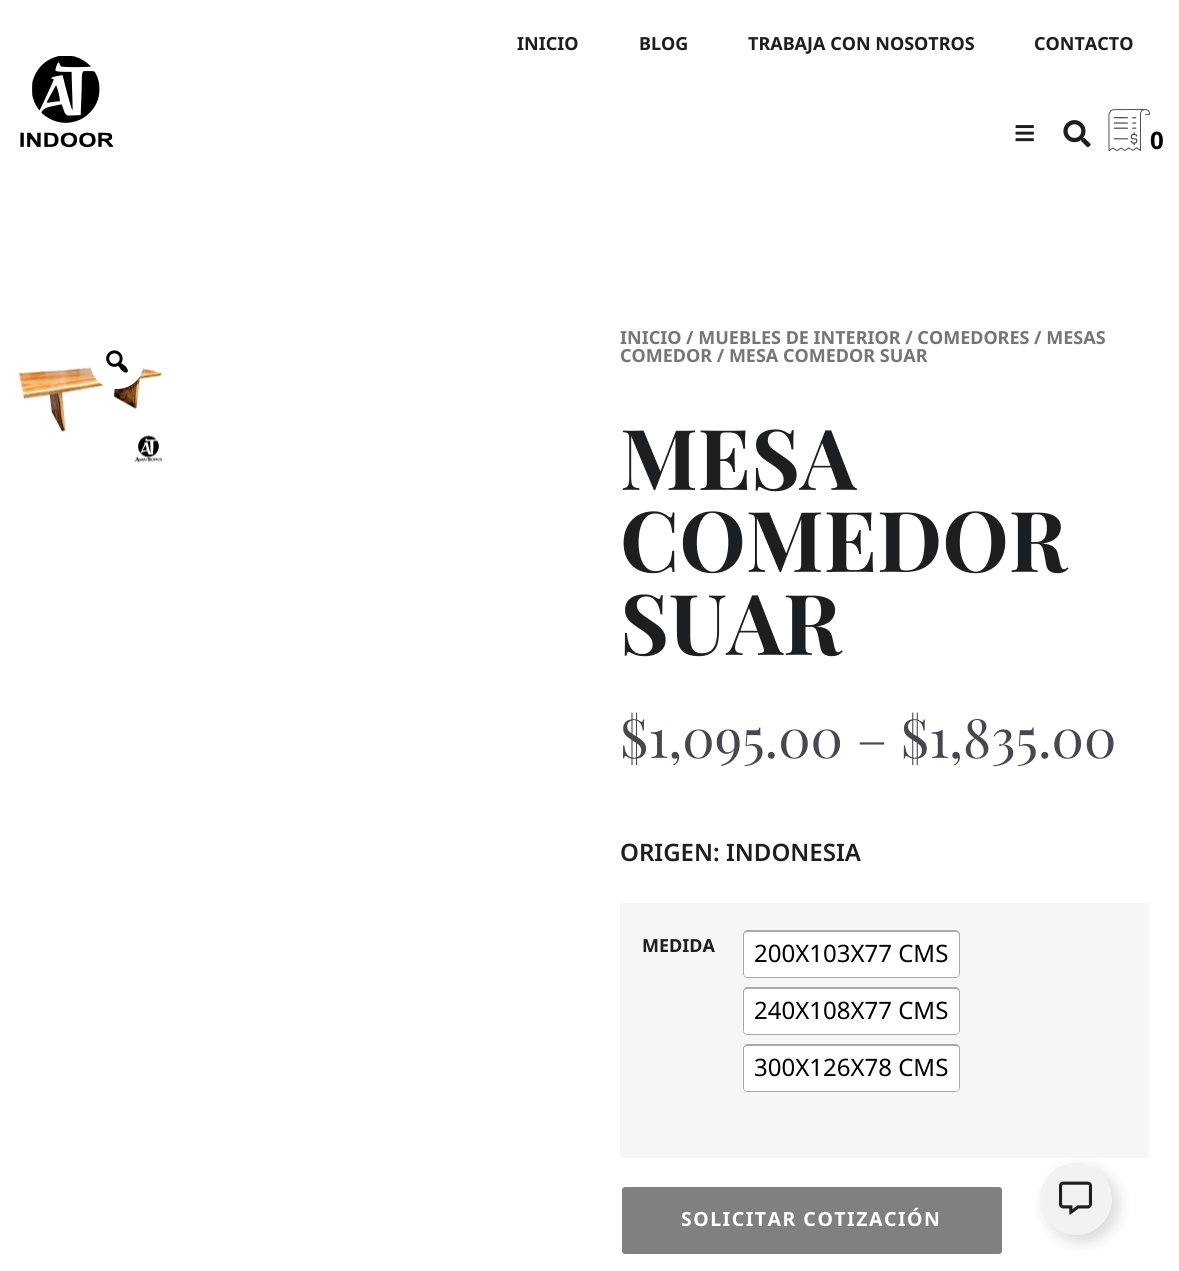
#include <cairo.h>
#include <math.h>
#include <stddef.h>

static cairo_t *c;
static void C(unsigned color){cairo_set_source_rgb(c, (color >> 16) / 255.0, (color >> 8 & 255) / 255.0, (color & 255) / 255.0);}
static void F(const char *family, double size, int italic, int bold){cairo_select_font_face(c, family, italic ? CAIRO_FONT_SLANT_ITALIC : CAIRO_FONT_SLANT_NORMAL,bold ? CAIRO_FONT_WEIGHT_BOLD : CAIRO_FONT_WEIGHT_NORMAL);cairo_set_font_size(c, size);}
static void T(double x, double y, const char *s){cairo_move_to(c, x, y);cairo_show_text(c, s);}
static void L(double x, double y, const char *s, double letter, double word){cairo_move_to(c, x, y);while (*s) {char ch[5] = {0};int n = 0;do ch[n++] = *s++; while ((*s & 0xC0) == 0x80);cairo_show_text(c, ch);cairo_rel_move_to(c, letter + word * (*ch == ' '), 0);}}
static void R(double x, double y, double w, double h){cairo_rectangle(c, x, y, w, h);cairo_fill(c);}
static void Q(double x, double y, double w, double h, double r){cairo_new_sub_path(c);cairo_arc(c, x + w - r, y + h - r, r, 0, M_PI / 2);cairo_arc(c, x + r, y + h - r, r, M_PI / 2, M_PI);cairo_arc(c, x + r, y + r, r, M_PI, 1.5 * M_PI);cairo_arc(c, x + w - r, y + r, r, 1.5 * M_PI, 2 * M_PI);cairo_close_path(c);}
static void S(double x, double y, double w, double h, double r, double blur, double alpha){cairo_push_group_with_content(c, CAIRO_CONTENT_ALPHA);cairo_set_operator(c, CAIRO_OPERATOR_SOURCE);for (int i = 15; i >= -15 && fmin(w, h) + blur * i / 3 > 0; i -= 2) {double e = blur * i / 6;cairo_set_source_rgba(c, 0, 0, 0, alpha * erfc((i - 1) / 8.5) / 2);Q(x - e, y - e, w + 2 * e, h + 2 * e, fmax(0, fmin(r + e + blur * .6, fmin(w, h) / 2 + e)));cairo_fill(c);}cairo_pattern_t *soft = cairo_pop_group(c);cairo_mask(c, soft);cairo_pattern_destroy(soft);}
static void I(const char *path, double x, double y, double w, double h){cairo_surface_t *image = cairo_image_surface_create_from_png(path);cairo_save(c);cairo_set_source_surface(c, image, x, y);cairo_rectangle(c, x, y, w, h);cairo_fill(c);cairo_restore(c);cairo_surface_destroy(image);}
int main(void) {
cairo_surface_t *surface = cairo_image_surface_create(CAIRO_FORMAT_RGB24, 1179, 1271);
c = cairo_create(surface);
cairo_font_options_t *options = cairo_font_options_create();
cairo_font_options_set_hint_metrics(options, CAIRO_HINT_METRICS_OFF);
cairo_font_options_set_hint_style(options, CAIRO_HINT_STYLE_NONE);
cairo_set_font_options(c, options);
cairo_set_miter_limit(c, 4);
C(0xffffff);
cairo_paint(c);
I("1.png",20,56,94,92);
F("Noto Sans",18,0,1);
C(0x1d1e20);
T(517,50,"INICIO");
T(639,50,"BLOG");
T(748,50,"TRABAJA CON NOSOTROS");
T(1034,50,"CONTACTO");
I("2.png",1015,125,19,17);
I("3.png",1063,120,28,28);
I("4.png",1108,109,43,43);
F("Noto Sans",24,0,1);
C(0x000000);
T(1150,149,"0");
I("6.png",19,363,144,100);
C(0xffffff);
cairo_arc(c,117,362,27,0,2 * M_PI);
cairo_fill(c);
I("5.png",106,350,22,23);
F("Noto Sans",18,0,1);
C(0x767676);
T(620,344,"INICIO / MUEBLES DE INTERIOR / COMEDORES / MESAS");
T(620,362,"COMEDOR / MESA COMEDOR SUAR");
F("Playfair Display",84,0,1);
C(0x1d1e20);
T(620,490,"MESA");
T(620,572,"COMEDOR");
T(620,655,"SUAR");
F("Playfair Display",54,0,0);
C(0x46474f);
T(620,758,"$1,095.00 – $1,835.00");
F("Noto Sans SemiBold",24,0,0);
C(0x1d1e20);
T(620,861,"ORIGEN: INDONESIA");
C(0xf6f6f6);
R(620,903,529,255);
F("Noto Sans",18,0,1);
C(0x1d1e20);
T(642,952,"MEDIDA");
Q(744,931,215,46,4);
C(0xa8a8a8);
cairo_stroke(c);
C(0xffffff);
Q(744,932,215,45,3);
cairo_fill(c);
F("Noto Sans",24,0,0);
C(0x000000);
T(754,962,"200X103X77 CMS");
Q(744,988,215,46,4);
C(0xa8a8a8);
cairo_stroke(c);
C(0xffffff);
Q(744,989,215,45,3);
cairo_fill(c);
C(0x000000);
T(754,1019,"240X108X77 CMS");
Q(744,1045,215,46,4);
C(0xa8a8a8);
cairo_stroke(c);
C(0xffffff);
Q(744,1046,215,45,3);
cairo_fill(c);
C(0x000000);
T(754,1076,"300X126X78 CMS");
C(0x808080);
Q(621,1186,382,69,4);
cairo_fill_preserve(c);
C(0xffffff);
cairo_stroke(c);
F("Noto Sans",19.5,0,1);
L(681,1226,"SOLICITAR COTIZACIÓN",1.5,0);
C(0x000000);
S(1046,1169,72,72,36,7.5,.15);
C(0xf2f2f2);
cairo_arc(c,1076,1199,36,0,2 * M_PI);
cairo_fill(c);
I("7.png",1059,1181,33,34);
cairo_surface_write_to_png(surface, "o.png");
cairo_font_options_destroy(options);
cairo_destroy(c);
cairo_surface_destroy(surface);
return 0;
}
